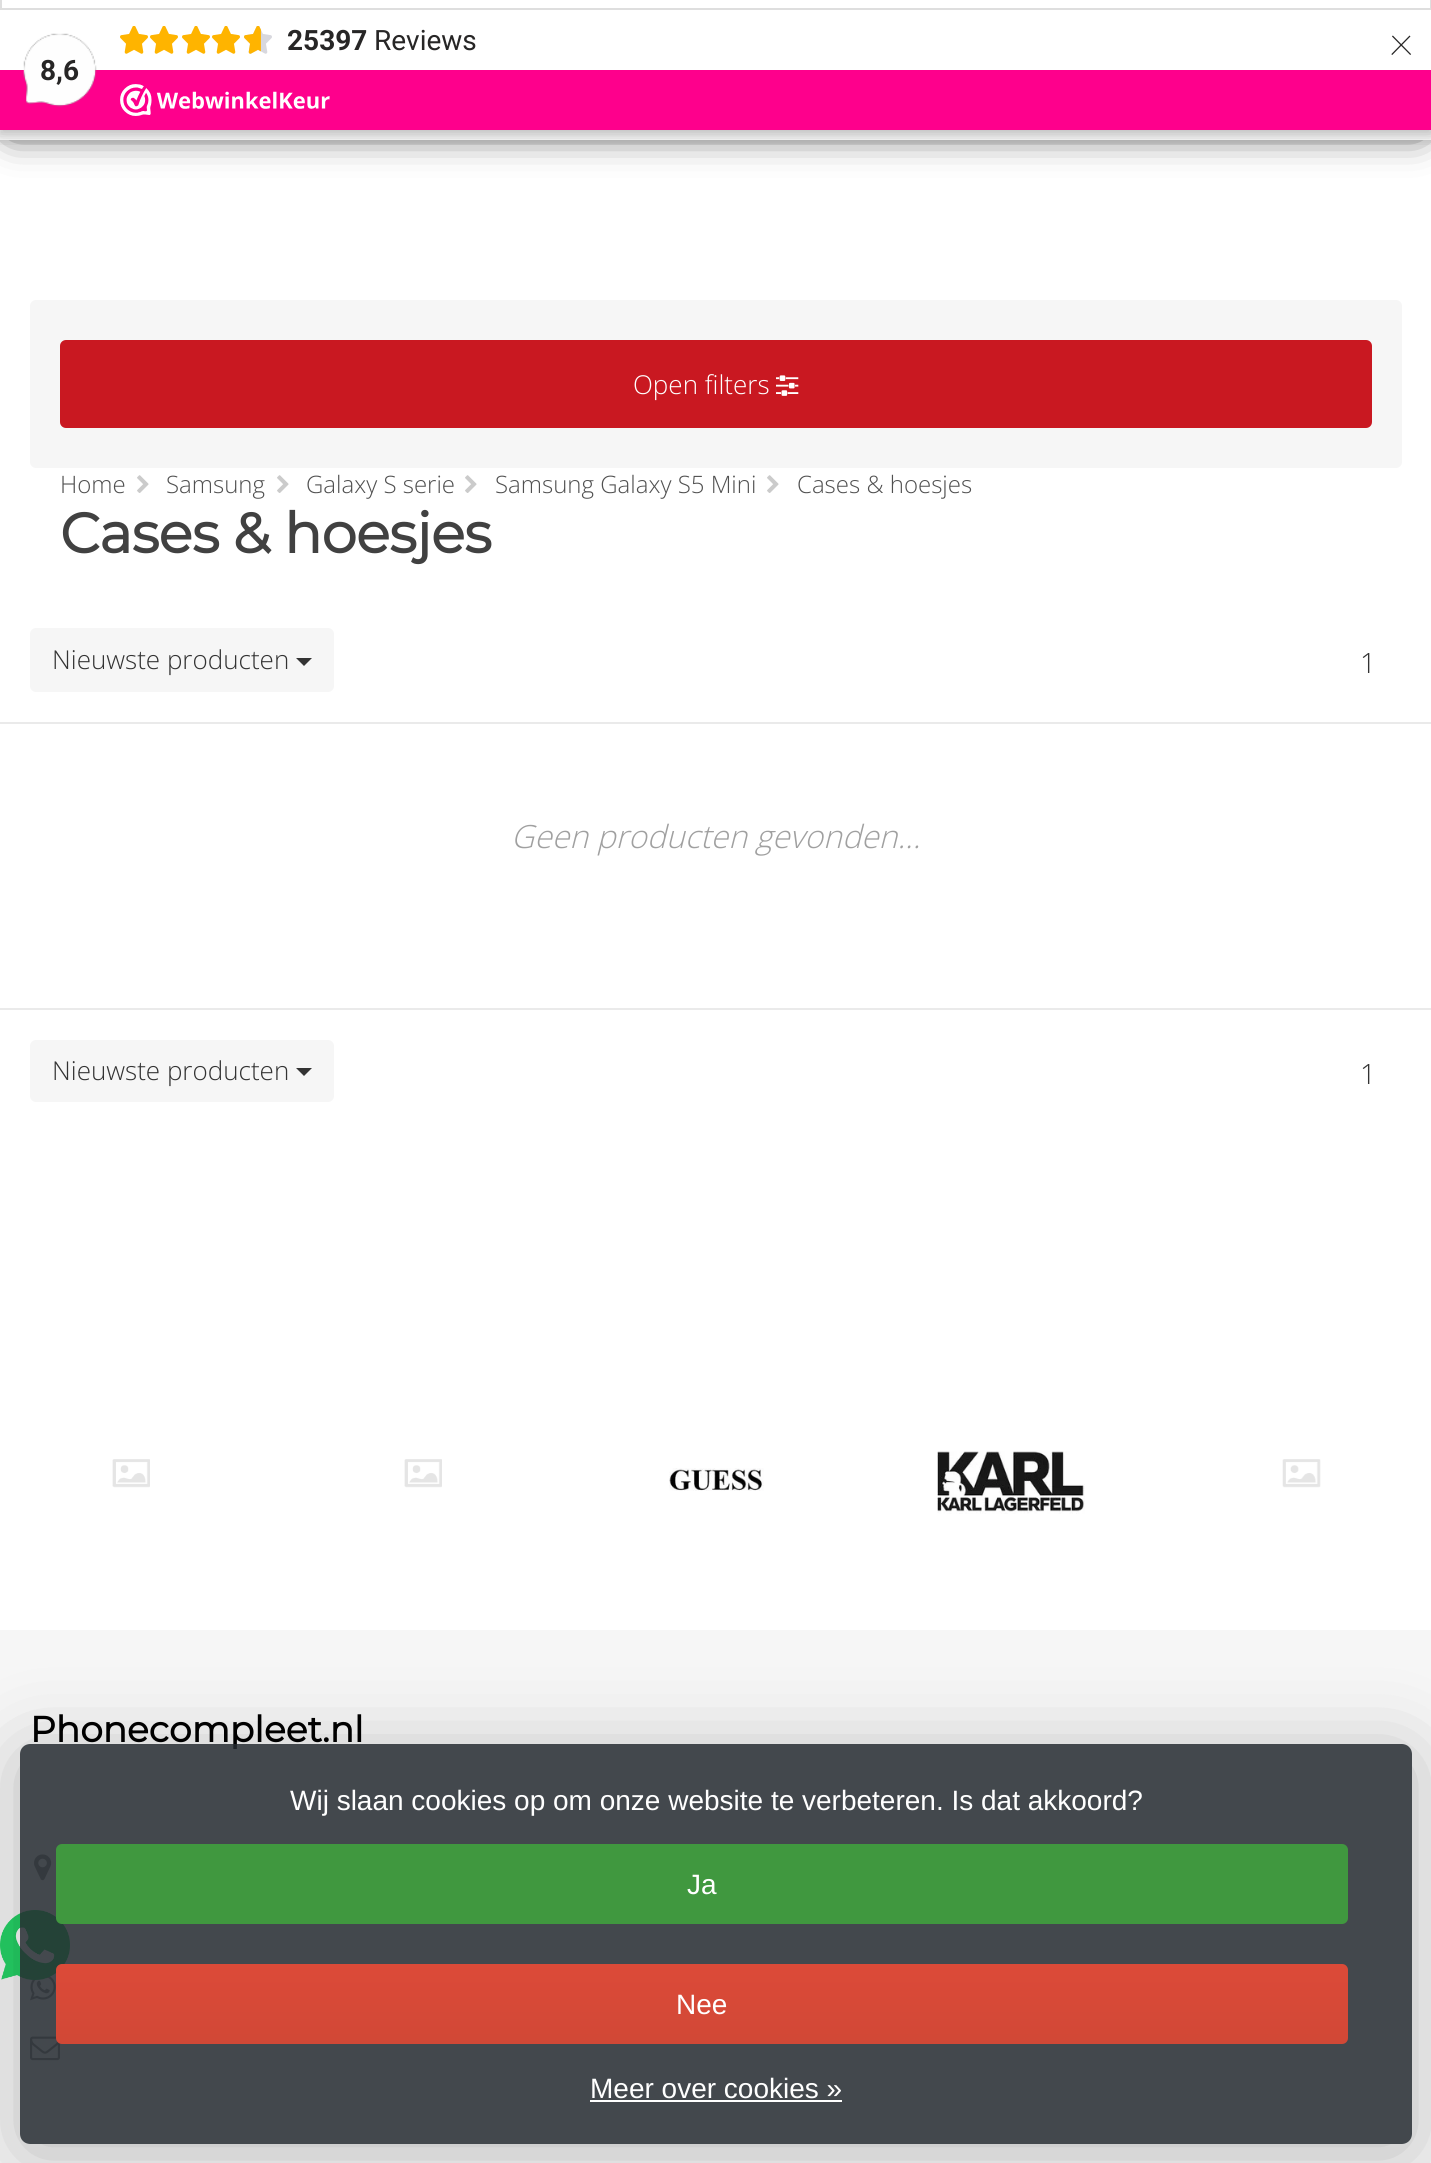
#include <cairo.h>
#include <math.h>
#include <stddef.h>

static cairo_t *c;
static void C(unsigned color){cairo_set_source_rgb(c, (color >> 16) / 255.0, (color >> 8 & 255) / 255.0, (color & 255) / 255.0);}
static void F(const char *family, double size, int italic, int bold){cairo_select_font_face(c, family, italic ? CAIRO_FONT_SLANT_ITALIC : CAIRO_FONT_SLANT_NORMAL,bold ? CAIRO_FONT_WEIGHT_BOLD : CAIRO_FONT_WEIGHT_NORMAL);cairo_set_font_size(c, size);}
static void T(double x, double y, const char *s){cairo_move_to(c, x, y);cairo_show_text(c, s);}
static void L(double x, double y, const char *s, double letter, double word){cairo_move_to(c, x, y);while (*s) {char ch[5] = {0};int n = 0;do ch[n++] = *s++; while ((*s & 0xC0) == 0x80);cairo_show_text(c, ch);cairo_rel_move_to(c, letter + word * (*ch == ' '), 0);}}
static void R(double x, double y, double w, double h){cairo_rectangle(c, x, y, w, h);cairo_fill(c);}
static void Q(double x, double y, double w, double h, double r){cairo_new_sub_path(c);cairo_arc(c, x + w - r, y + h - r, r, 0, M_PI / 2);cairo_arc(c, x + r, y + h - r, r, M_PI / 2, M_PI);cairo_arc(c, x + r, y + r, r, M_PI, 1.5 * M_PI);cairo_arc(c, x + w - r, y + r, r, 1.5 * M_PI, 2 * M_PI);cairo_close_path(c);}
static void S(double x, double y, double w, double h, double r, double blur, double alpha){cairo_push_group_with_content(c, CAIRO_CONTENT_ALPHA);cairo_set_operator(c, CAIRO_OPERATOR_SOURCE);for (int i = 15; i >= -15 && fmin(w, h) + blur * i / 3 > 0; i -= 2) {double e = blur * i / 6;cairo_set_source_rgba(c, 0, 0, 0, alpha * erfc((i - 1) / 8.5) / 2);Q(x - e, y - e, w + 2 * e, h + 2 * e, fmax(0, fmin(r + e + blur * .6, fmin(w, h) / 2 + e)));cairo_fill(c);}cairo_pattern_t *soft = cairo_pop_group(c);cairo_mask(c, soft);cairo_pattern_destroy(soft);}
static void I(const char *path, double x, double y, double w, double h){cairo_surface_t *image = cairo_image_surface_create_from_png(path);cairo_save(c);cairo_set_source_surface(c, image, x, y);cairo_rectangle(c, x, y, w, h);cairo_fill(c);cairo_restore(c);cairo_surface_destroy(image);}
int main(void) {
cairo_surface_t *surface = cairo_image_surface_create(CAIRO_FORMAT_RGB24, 1431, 2163);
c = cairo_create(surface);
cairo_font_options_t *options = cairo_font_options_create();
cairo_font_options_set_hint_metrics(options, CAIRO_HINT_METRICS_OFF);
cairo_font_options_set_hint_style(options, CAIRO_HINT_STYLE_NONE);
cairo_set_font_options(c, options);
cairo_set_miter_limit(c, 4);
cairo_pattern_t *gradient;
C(0xffffff);
cairo_paint(c);
C(0x000000);
S(12,12,1408,116,0,20,1);
C(0xffffff);
R(0,130,1431,10);
C(0x000000);
S(-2,-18,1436,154,0,6,.15);
C(0xffffff);
R(0,10,1431,60);
cairo_save(c);
cairo_rectangle(c,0,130,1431,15);
cairo_clip(c);
C(0x000000);
S(0,14,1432,120,0,10,.15);
cairo_restore(c);
cairo_rectangle(c,1,-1,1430,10);
cairo_fill_preserve(c);
C(0xdedede);
cairo_stroke(c);
I("1.png",120,26,28,28);
I("1.png",150,26,28,28);
I("1.png",182,26,28,28);
I("1.png",212,26,28,28);
I("2.png",244,26,28,28);
I("3.png",244,26,17,28);
F("Roboto",28,0,1);
C(0x272626);
T(287,50,"25397");
F("Roboto",28,0,0);
T(374,50,"Reviews");
F("Roboto Thin",48,0,0);
T(1389,55,"×");
C(0xfe008c);
R(0,70,1431,60);
I("4.png",23,33,74,74);
F("Roboto",28,0,1);
C(0x272626);
T(40,80,"8,6");
I("5.png",120,84,210,32);
C(0xf6f6f6);
Q(30,300,1372,168,6);
cairo_fill(c);
C(0xc91821);
Q(60,340,1312,88,6);
cairo_fill(c);
F("Open Sans Light",26,0,0);
C(0xffffff);
T(633,394,"Open filters");
I("6.png",776,375,23,21);
F("Open Sans Light",24,0,0);
C(0x505050);
T(60,493,"Home");
I("7.png",137,475,12,18);
T(166,493,"Samsung");
I("7.png",277,475,12,18);
T(306,493,"Galaxy S serie");
I("7.png",465,475,12,18);
T(495,493,"Samsung Galaxy S5 Mini");
I("7.png",767,475,12,18);
T(797,493,"Cases & hoesjes");
F("Montserrat",56,0,1);
C(0x414141);
L(60,553,"Cases & hoesjes",-.5,0);
C(0xf6f6f6);
Q(30,628,304,64,6);
cairo_fill(c);
F("Open Sans Light",26,0,0);
C(0x333333);
T(52,669,"Nieuwste producten");
cairo_new_path(c);
cairo_move_to(c,296,658);
cairo_line_to(c,312,658);
cairo_line_to(c,304,666);
cairo_close_path(c);
cairo_fill(c);
F("Open Sans Light",28,0,0);
T(1360,673,"1");
C(0xeaeaea);
R(0,722,1431,2);
F("Open Sans Light",32,1,0);
C(0xa0a0a0);
T(511,848,"Geen producten gevonden...");
C(0xeaeaea);
R(0,1008,1431,2);
C(0xf6f6f6);
Q(30,1040,304,62,6);
cairo_fill(c);
F("Open Sans Light",26,0,0);
C(0x333333);
T(52,1080,"Nieuwste producten");
cairo_new_path(c);
cairo_move_to(c,296,1068);
cairo_line_to(c,312,1068);
cairo_line_to(c,304,1076);
cairo_close_path(c);
cairo_fill(c);
F("Open Sans Light",28,0,0);
T(1360,1084,"1");
I("8.png",112,1459,38,29);
I("8.png",404,1459,38,29);
I("9.png",669,1468,95,23);
I("10.png",937,1451,148,63);
I("11.png",1282,1459,39,29);
C(0xf6f6f6);
R(0,1630,1431,533);
F("Montserrat",36,0,1);
C(0x000000);
T(30,1742,"Phonecompleet.nl");
I("12.png",34,1854,18,27);
I("13.png",30,1976,26,25);
I("14.png",30,2036,30,25);
I("15.png",0,1910,70,70);
cairo_save(c);
cairo_set_fill_rule(c,CAIRO_FILL_RULE_EVEN_ODD);
cairo_new_path(c);
cairo_move_to(c,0,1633);
cairo_line_to(c,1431,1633);
cairo_line_to(c,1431,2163);
cairo_line_to(c,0,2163);
cairo_close_path(c);
cairo_move_to(c,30,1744);
cairo_line_to(c,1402,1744);
cairo_curve_to(c,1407.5,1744,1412,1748.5,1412,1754);
cairo_line_to(c,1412,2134);
cairo_curve_to(c,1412,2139.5,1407.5,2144,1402,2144);
cairo_line_to(c,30,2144);
cairo_curve_to(c,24.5,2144,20,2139.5,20,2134);
cairo_line_to(c,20,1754);
cairo_curve_to(c,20,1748.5,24.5,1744,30,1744);
cairo_close_path(c);
cairo_clip(c);
C(0x000000);
S(20,1754,1392,400,10,40,.25);
cairo_restore(c);
cairo_set_source_rgba(c,0.141,0.165,0.188,0.85);
Q(20,1744,1392,400,10);
cairo_fill(c);
F("Liberation Sans",28,0,0);
C(0xffffff);
T(290,1810,"Wij slaan cookies op om onze website te verbeteren. Is dat akkoord?");
C(0x40983f);
Q(56,1844,1292,80,6);
cairo_fill(c);
C(0xffffff);
T(687,1894,"Ja");
gradient = cairo_pattern_create_linear(702,1964,702,2044);
cairo_pattern_add_color_stop_rgba(gradient,0,0.863,0.29,0.22,1);
cairo_pattern_add_color_stop_rgba(gradient,1,0.82,0.282,0.212,1);
cairo_set_source(c,gradient);
cairo_pattern_destroy(gradient);
Q(56,1964,1292,80,6);
cairo_fill(c);
C(0xffffff);
T(676,2014,"Nee");
T(590,2098,"Meer over cookies »");
R(590,2100,252,2);
cairo_surface_write_to_png(surface, "o.png");
cairo_font_options_destroy(options);
cairo_destroy(c);
cairo_surface_destroy(surface);
return 0;
}
